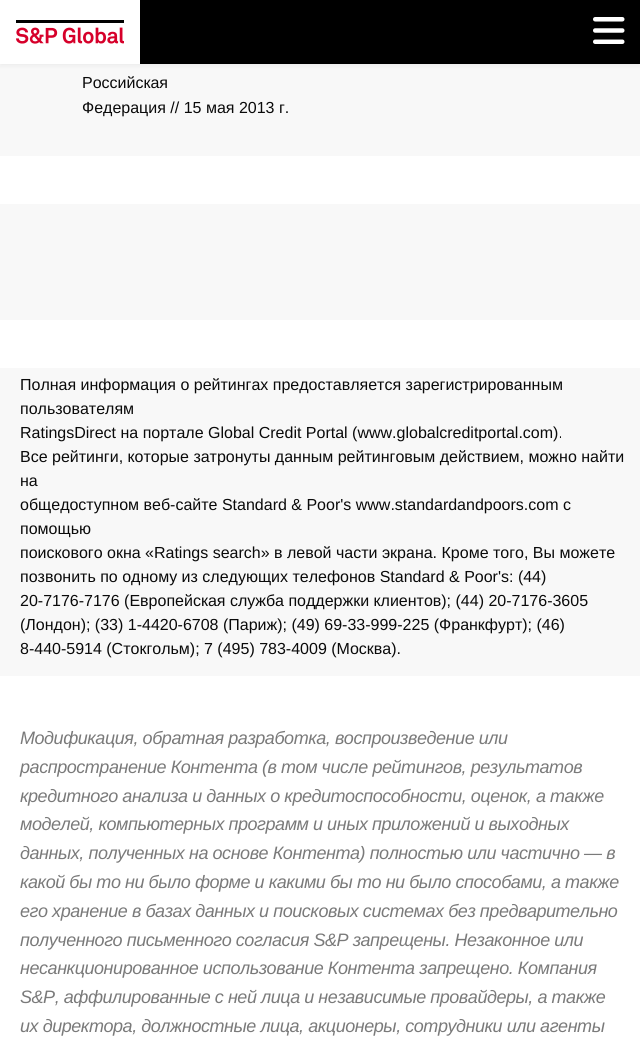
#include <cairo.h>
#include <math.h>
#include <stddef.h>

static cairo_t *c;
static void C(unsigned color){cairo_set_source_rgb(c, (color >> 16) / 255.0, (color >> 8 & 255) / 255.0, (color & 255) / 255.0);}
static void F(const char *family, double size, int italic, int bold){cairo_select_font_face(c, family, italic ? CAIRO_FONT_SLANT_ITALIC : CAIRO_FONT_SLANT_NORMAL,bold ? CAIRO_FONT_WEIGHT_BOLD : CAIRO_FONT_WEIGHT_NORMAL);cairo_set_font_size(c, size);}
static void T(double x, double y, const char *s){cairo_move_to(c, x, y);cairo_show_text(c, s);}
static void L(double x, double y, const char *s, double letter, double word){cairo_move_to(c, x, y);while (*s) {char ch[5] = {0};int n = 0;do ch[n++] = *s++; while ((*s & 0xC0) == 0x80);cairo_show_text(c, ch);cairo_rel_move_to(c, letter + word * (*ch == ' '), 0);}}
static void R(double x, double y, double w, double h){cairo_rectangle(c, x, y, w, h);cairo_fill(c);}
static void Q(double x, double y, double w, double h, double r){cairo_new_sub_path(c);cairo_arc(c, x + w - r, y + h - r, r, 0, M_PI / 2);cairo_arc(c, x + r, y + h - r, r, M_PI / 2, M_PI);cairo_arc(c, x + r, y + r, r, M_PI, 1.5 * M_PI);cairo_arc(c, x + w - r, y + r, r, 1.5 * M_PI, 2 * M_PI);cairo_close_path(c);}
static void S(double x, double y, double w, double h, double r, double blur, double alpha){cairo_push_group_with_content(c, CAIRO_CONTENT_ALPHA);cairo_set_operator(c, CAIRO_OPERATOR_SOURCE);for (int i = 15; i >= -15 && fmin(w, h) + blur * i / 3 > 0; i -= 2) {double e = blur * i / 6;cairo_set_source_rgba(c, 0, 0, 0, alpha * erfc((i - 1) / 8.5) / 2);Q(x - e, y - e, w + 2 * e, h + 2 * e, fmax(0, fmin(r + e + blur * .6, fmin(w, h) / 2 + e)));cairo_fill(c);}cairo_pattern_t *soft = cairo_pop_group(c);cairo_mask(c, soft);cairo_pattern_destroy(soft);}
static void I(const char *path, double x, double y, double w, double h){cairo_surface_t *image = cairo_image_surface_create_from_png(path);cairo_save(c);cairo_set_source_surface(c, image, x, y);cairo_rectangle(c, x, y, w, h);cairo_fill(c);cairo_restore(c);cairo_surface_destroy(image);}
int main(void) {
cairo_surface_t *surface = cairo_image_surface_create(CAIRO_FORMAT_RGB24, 640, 1055);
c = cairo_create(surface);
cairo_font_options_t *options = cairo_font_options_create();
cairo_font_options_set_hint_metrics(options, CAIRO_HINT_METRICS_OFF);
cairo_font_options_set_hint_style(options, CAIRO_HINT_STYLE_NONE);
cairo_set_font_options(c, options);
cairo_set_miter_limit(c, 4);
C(0xffffff);
cairo_paint(c);
C(0xf8f8f8);
R(0,64,640,92);
C(0xadadad);
S(0,2,640,64,0,2,.15);
C(0xffffff);
R(0,0,140,64);
I("1.png",16,20,108,24);
C(0x000000);
R(140,0,500,64);
I("2.png",593,17,32,27);
F("Liberation Sans",16,0,0);
C(0x0a0a0a);
T(82,88,"Российская");
T(82,113,"Федерация // 15 мая 2013 г.");
C(0xf8f8f8);
R(0,204,640,116);
R(0,368,640,308);
C(0x0a0a0a);
T(20,390,"Полная информация о рейтингах предоставляется зарегистрированным");
T(20,414,"пользователям");
T(20,438,"RatingsDirect на портале Global Credit Portal (www.globalcreditportal.com).");
T(20,462,"Все рейтинги, которые затронуты данным рейтинговым действием, можно найти");
T(20,486,"на");
T(20,510,"общедоступном веб-сайте Standard & Poor's www.standardandpoors.com с");
T(20,534,"помощью");
T(20,558,"поискового окна «Ratings search» в левой части экрана. Кроме того, Вы можете");
T(20,582,"позвонить по одному из следующих телефонов Standard & Poor's: (44)");
T(20,606,"20-7176-7176 (Европейская служба поддержки клиентов); (44) 20-7176-3605");
T(20,630,"(Лондон); (33) 1-4420-6708 (Париж); (49) 69-33-999-225 (Франкфурт); (46)");
T(20,654,"8-440-5914 (Стокгольм); 7 (495) 783-4009 (Москва).");
F("Liberation Sans",18,1,0);
C(0x7a7a7a);
L(20,744,"Модификация, обратная разработка, воспроизведение или",-.45,0);
L(20,773,"распространение Контента (в том числе рейтингов, результатов",-.45,0);
L(20,802,"кредитного анализа и данных о кредитоспособности, оценок, а также",-.45,0);
L(20,830,"моделей, компьютерных программ и иных приложений и выходных",-.45,0);
L(20,859,"данных, полученных на основе Контента) полностью или частично — в",-.45,0);
L(20,888,"какой бы то ни было форме и какими бы то ни было способами, а также",-.45,0);
L(20,917,"его хранение в базах данных и поисковых системах без предварительно",-.45,0);
L(20,946,"полученного письменного согласия S&P запрещены. Незаконное или",-.45,0);
L(20,974,"несанкционированное использование Контента запрещено. Компания",-.45,0);
L(20,1003,"S&P, аффилированные с ней лица и независимые провайдеры, а также",-.45,0);
L(20,1032,"их директора, должностные лица, акционеры, сотрудники или агенты",-.45,0);
cairo_surface_write_to_png(surface, "o.png");
cairo_font_options_destroy(options);
cairo_destroy(c);
cairo_surface_destroy(surface);
return 0;
}
